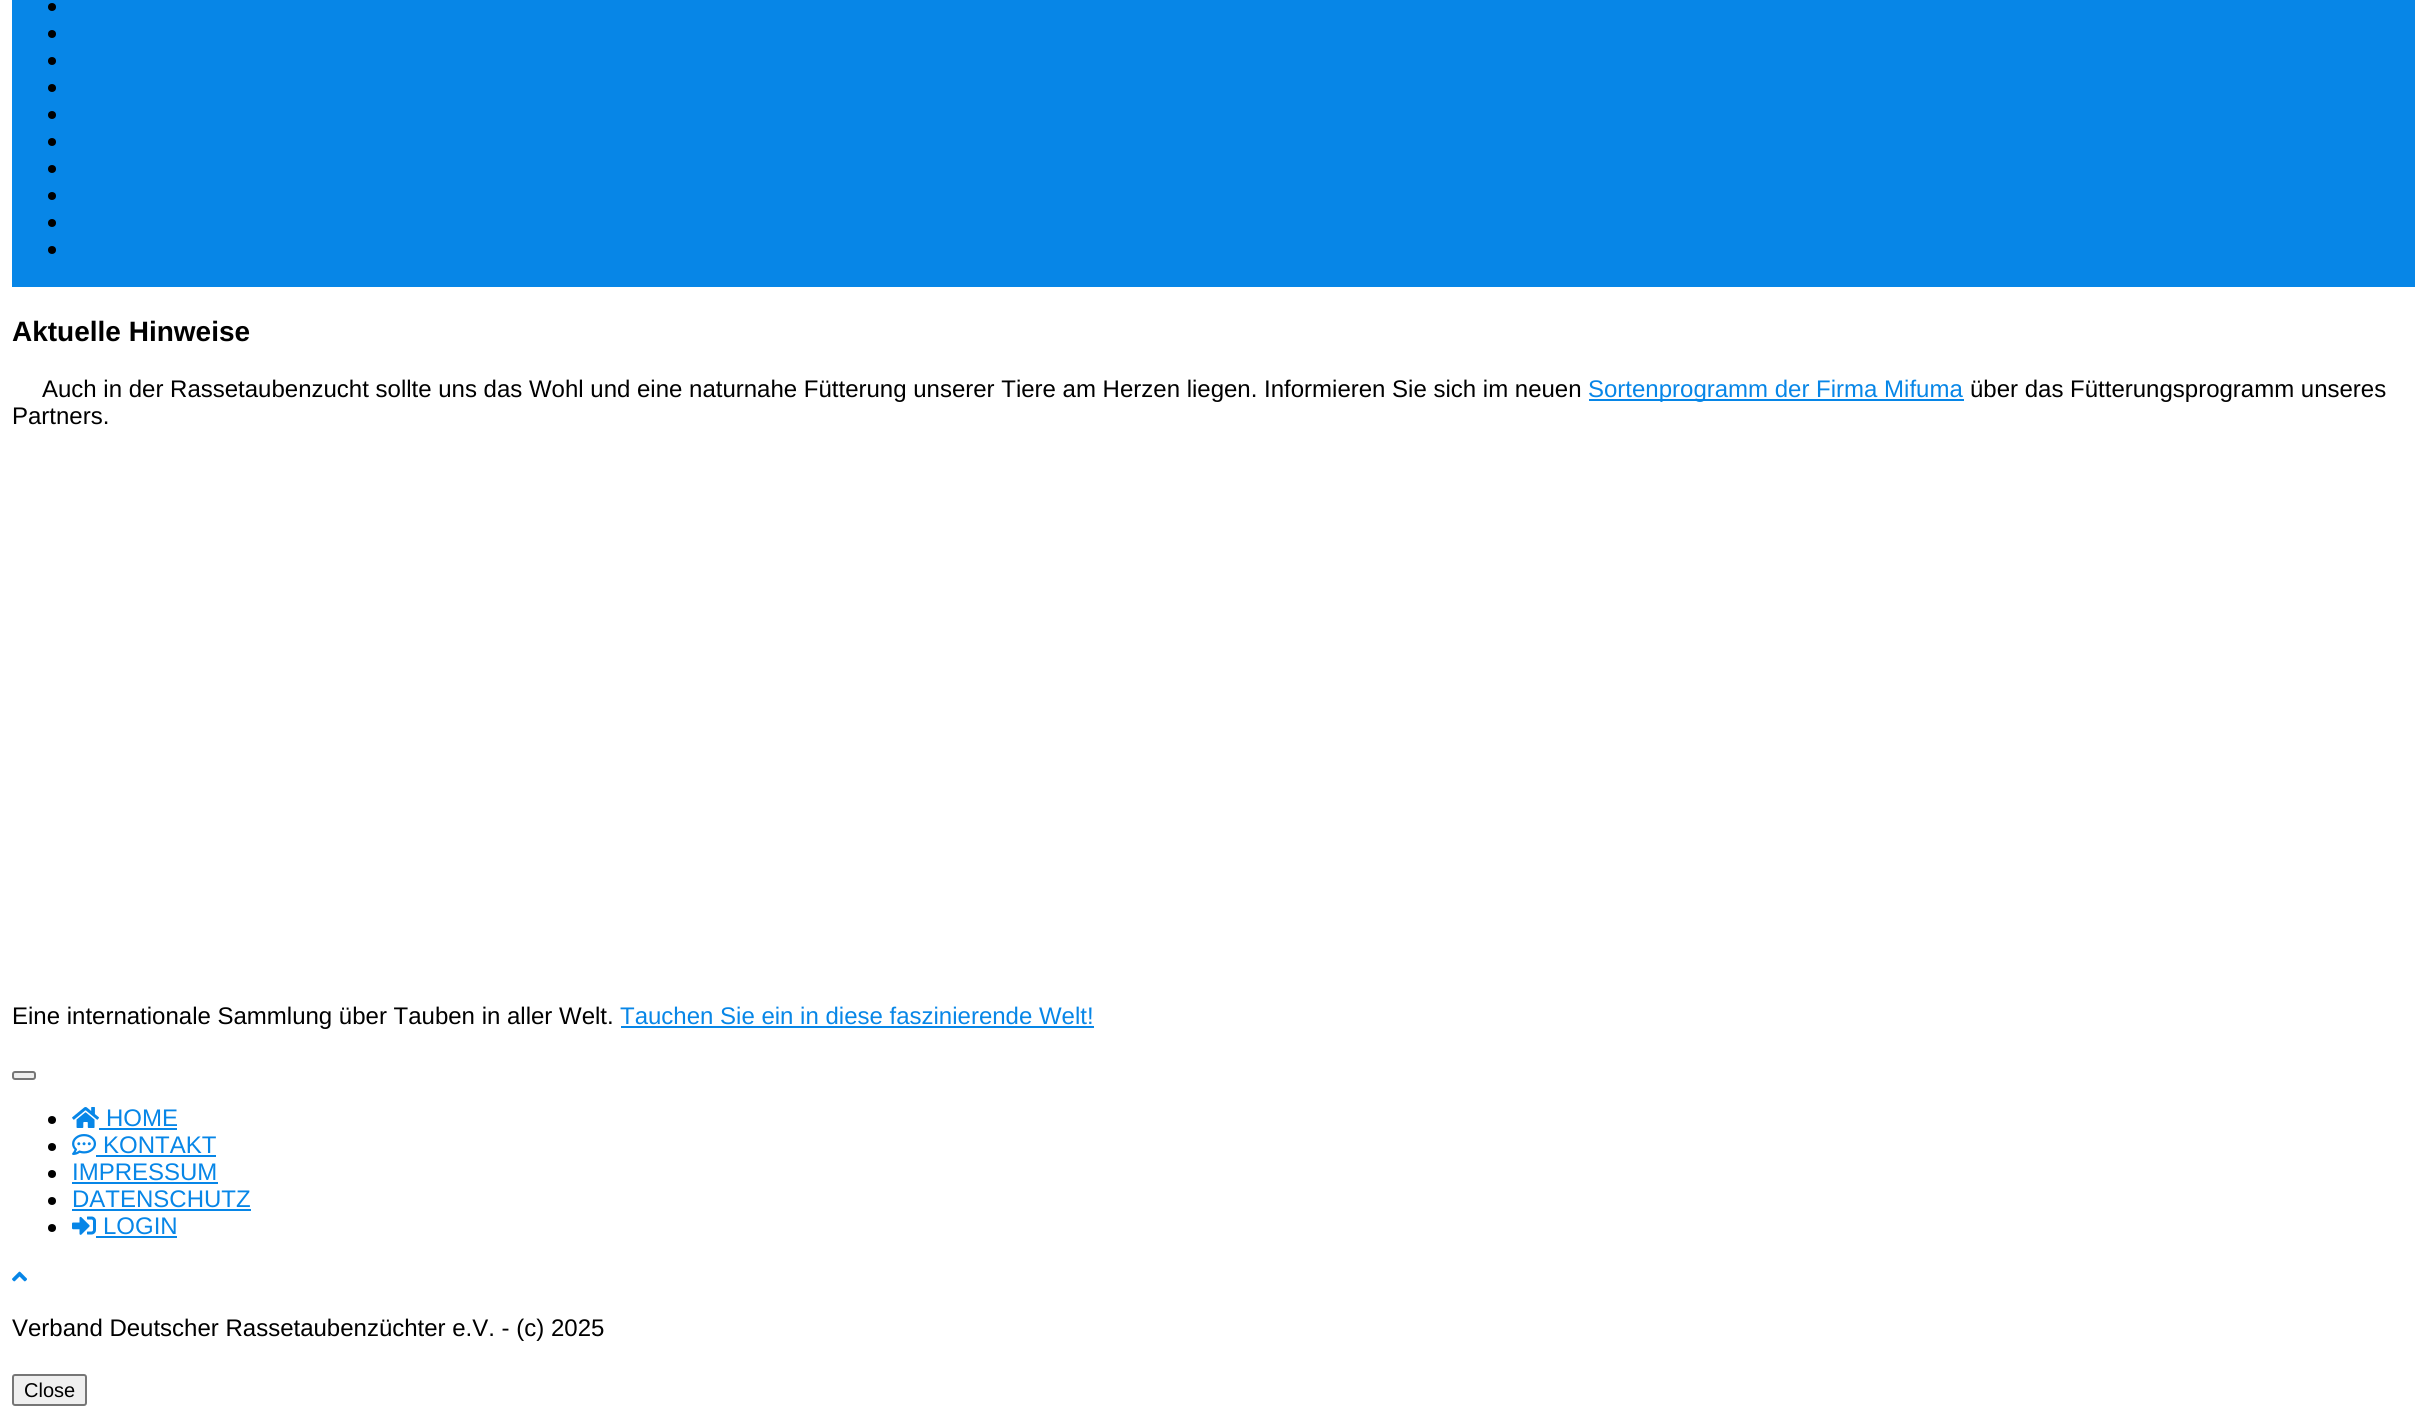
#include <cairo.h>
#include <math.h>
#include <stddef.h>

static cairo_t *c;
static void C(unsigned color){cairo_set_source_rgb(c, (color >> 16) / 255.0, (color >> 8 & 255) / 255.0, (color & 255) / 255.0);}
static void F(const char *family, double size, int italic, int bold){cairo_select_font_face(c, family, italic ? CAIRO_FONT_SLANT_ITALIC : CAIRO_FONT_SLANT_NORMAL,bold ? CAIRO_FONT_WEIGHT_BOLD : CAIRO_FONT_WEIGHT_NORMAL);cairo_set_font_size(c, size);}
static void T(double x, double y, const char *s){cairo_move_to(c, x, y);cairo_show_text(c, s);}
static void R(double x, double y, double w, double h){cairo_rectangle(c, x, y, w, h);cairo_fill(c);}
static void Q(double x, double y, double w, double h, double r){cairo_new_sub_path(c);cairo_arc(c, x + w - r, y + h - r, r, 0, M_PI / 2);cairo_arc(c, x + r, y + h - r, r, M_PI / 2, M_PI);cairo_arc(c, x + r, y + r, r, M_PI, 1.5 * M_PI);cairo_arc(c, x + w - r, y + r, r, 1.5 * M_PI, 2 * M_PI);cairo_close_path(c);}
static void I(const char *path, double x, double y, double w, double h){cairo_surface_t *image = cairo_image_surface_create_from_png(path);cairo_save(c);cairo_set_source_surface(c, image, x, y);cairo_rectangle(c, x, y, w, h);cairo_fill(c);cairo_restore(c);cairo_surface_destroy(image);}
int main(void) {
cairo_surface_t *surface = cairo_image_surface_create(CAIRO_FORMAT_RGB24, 2427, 1417);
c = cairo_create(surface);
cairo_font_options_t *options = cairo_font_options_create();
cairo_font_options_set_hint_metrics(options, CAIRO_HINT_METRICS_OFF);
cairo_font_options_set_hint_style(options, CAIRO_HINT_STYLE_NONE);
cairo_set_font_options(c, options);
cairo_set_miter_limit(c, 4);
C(0xffffff);
cairo_paint(c);
C(0x0786e7);
R(12,0,2403,287);
C(0x000000);
cairo_arc(c,52,7,4,0,2 * M_PI);
cairo_fill(c);
cairo_arc(c,52,34,4,0,2 * M_PI);
cairo_fill(c);
cairo_arc(c,52,61,4,0,2 * M_PI);
cairo_fill(c);
cairo_arc(c,52,88,4,0,2 * M_PI);
cairo_fill(c);
cairo_arc(c,52,115,4,0,2 * M_PI);
cairo_fill(c);
cairo_arc(c,52,142,4,0,2 * M_PI);
cairo_fill(c);
cairo_arc(c,52,169,4,0,2 * M_PI);
cairo_fill(c);
cairo_arc(c,52,196,4,0,2 * M_PI);
cairo_fill(c);
cairo_arc(c,52,223,4,0,2 * M_PI);
cairo_fill(c);
cairo_arc(c,52,250,4,0,2 * M_PI);
cairo_fill(c);
F("Liberation Sans",28,0,1);
T(12,341,"Aktuelle Hinweise");
F("Liberation Sans",24,0,0);
T(42,397,"Auch in der Rassetaubenzucht sollte uns das Wohl und eine naturnahe Fütterung unserer Tiere am Herzen liegen. Informieren Sie sich im neuen");
C(0x0786e7);
R(1589,399,375,2);
T(1588,397,"Sortenprogramm der Firma Mifuma");
C(0x000000);
T(1970,397,"über das Fütterungsprogramm unseres");
T(12,424,"Partners.");
T(12,1024,"Eine internationale Sammlung über Tauben in aller Welt.");
C(0x0786e7);
T(620,1024,"Tauchen Sie ein in diese faszinierende Welt!");
R(621,1026,473,2);
C(0xefefef);
Q(13,1072,22,7,2);
cairo_fill_preserve(c);
C(0x767676);
cairo_stroke(c);
C(0x000000);
cairo_arc(c,52,1120,4,0,2 * M_PI);
cairo_fill(c);
I("1.png",72,1107,27,21);
C(0x0786e7);
T(106,1126,"HOME");
R(99,1128,78,2);
C(0x000000);
cairo_new_path(c);
cairo_arc(c,52,1147,4,0,2 * M_PI);
cairo_fill(c);
I("2.png",72,1134,24,21);
C(0x0786e7);
T(103,1153,"KONTAKT");
R(96,1155,120,2);
C(0x000000);
cairo_new_path(c);
cairo_arc(c,52,1174,4,0,2 * M_PI);
cairo_fill(c);
C(0x0786e7);
T(72,1180,"IMPRESSUM");
R(72,1182,146,2);
C(0x000000);
cairo_new_path(c);
cairo_arc(c,52,1201,4,0,2 * M_PI);
cairo_fill(c);
C(0x0786e7);
T(72,1207,"DATENSCHUTZ");
R(72,1209,179,2);
C(0x000000);
cairo_new_path(c);
cairo_arc(c,52,1228,4,0,2 * M_PI);
cairo_fill(c);
I("3.png",72,1216,24,19);
C(0x0786e7);
T(103,1234,"LOGIN");
R(96,1236,81,2);
I("4.png",12,1271,15,11);
C(0x000000);
T(12,1336,"Verband Deutscher Rassetaubenzüchter e.V. - (c) 2025");
C(0xefefef);
Q(13,1375,73,30,2);
cairo_fill_preserve(c);
C(0x767676);
cairo_stroke(c);
F("Liberation Sans",20,0,0);
C(0x000000);
T(24,1397,"Close");
cairo_surface_write_to_png(surface, "o.png");
cairo_font_options_destroy(options);
cairo_destroy(c);
cairo_surface_destroy(surface);
return 0;
}
